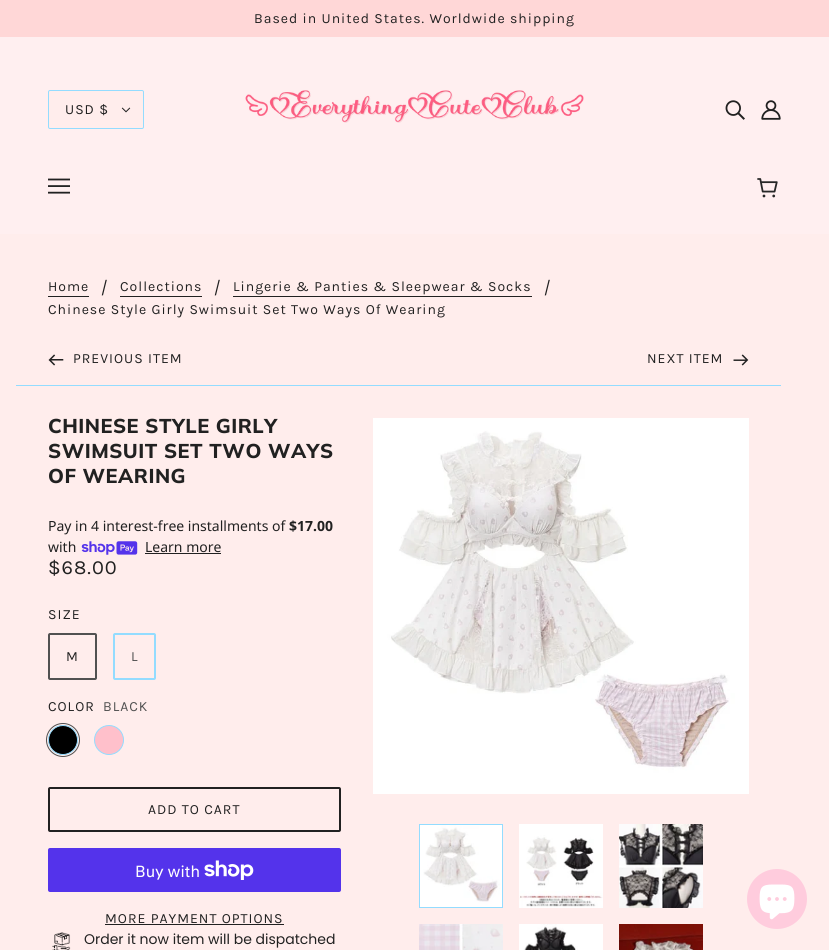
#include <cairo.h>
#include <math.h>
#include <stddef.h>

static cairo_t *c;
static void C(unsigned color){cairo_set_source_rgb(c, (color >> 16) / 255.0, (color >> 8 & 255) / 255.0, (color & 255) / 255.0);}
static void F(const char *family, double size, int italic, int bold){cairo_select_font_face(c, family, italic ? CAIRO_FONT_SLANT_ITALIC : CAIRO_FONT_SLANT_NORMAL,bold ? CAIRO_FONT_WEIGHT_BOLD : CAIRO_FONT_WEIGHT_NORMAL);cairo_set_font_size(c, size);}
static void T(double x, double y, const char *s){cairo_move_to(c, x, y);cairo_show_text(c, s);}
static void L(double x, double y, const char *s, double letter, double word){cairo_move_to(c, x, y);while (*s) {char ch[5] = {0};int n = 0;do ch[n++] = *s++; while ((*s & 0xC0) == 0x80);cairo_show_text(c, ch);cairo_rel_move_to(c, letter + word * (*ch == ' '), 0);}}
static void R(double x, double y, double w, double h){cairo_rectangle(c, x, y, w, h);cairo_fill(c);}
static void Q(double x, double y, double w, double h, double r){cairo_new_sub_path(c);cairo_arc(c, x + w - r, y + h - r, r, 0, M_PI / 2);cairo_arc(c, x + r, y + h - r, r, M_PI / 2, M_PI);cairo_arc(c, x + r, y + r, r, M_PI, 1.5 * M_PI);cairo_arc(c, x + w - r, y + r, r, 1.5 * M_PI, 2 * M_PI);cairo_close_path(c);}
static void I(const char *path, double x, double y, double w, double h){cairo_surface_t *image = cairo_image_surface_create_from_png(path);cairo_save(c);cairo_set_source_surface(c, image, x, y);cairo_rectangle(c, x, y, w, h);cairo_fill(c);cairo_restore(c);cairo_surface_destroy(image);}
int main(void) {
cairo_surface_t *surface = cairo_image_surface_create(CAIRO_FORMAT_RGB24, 829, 950);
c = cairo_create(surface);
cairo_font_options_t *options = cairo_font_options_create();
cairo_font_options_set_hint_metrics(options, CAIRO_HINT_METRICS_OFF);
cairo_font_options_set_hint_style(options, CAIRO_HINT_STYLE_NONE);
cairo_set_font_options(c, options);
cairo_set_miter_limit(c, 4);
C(0xffedec);
cairo_paint(c);
C(0xffd7d7);
R(0,0,829,37);
F("Karla",14,0,0);
C(0x212121);
L(254,23,"Based in United States. Worldwide shipping",1,0);
C(0xffeff0);
R(0,37,829,197);
C(0xffedec);
Q(48.5,90.5,95,38,1.5);
cairo_fill_preserve(c);
C(0x93dcff);
cairo_set_line_width(c,1);
cairo_stroke(c);
C(0x212121);
L(65,114,"USD $",1,0);
I("1.png",121,107,10,6);
I("2.png",245,90,339,33);
I("3.png",725,100,20,20);
I("4.png",761,100,20,20);
I("5.png",48,178,22,16);
I("6.png",757,178,21,20);
L(48,291,"Home",1,0);
R(48,296,41,1);
F("Poppins",14,0,0);
T(101,293,"/");
F("Karla",14,0,0);
L(120,291,"Collections",1,0);
R(120,296,82,1);
F("Poppins",14,0,0);
T(214,293,"/");
F("Karla",14,0,0);
L(233,291,"Lingerie & Panties & Sleepwear & Socks",1,0);
R(233,296,299,1);
F("Poppins",14,0,0);
T(544,293,"/");
F("Karla",14,0,0);
L(48,314,"Chinese Style Girly Swimsuit Set Two Ways Of Wearing",1,0);
C(0x93dcff);
R(16,385,765,1);
I("7.png",48,354,16,12);
C(0x212121);
L(73,363,"PREVIOUS ITEM",1,0);
L(647,363,"NEXT ITEM",1,0);
I("8.png",733,354,16,12);
F("Muli ExtraBold",20,0,0);
L(48,433,"CHINESE STYLE GIRLY",.5,0);
L(48,458,"SWIMSUIT SET TWO WAYS",.5,0);
L(48,483,"OF WEARING",.5,0);
I("9.png",373,418,376,376);
cairo_rectangle(c,419.5,824.5,83,83);
C(0x93dcff);
cairo_stroke(c);
I("10.png",420,825,82,82);
I("11.png",519,824,84,84);
I("12.png",619,824,84,84);
I("13.png",419,924,84,26);
I("14.png",519,924,84,26);
I("15.png",619,924,84,26);
F("Noto Sans",14,0,0);
C(0x212121);
T(48,531,"Pay in 4 interest-free installments of");
F("Noto Sans",14,0,1);
T(289,531,"$17.00");
F("Noto Sans",14,0,0);
T(48,552,"with");
I("16.png",81,541,57,14);
T(145,552,"Learn more");
R(145,553,76,1);
F("Karla",20,0,0);
L(48,574,"$68.00",1,0);
F("Karla",14,0,0);
L(48,619,"SIZE",1,0);
Q(49,634,47,45,1);
C(0x515151);
cairo_set_line_width(c,2);
cairo_stroke(c);
C(0x212121);
L(66,661,"M",1,0);
Q(114,634,41,45,1);
C(0x93dcff);
cairo_stroke(c);
C(0x515151);
L(131,661,"L",1,0);
C(0x212121);
L(48,711,"COLOR",1,0);
C(0x515151);
L(103,711,"BLACK",1,0);
C(0x000000);
cairo_new_path(c);
cairo_arc(c,63,740,14.5,0,2 * M_PI);
cairo_fill_preserve(c);
C(0x93dcff);
cairo_set_line_width(c,1);
cairo_stroke(c);
cairo_arc(c,63,740,16.5,0,2 * M_PI);
C(0x515151);
cairo_stroke(c);
C(0xffc0cb);
cairo_arc(c,109,740,14.5,0,2 * M_PI);
cairo_fill_preserve(c);
C(0x93dcff);
cairo_stroke(c);
Q(49,788,291,43,1);
C(0x212121);
cairo_set_line_width(c,2);
cairo_stroke(c);
L(148,814,"ADD TO CART",1,0);
C(0x5433eb);
Q(48,848,293,44,2);
cairo_fill(c);
F("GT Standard",16,0,0);
C(0xffffff);
T(135,877,"Buy with");
I("17.png",204,860,50,20);
F("Karla",14,0,0);
C(0x212121);
L(105,923,"MORE PAYMENT OPTIONS",1,0);
R(105,924,179,1);
I("18.png",52,932,19,18);
F("Poppins",14,0,0);
T(84,944,"Order it now item will be dispatched");
C(0xffccdd);
cairo_new_path(c);
cairo_arc(c,777,899,30,0,2 * M_PI);
cairo_fill(c);
I("19.png",759,884,36,36);
cairo_surface_write_to_png(surface, "o.png");
cairo_font_options_destroy(options);
cairo_destroy(c);
cairo_surface_destroy(surface);
return 0;
}
